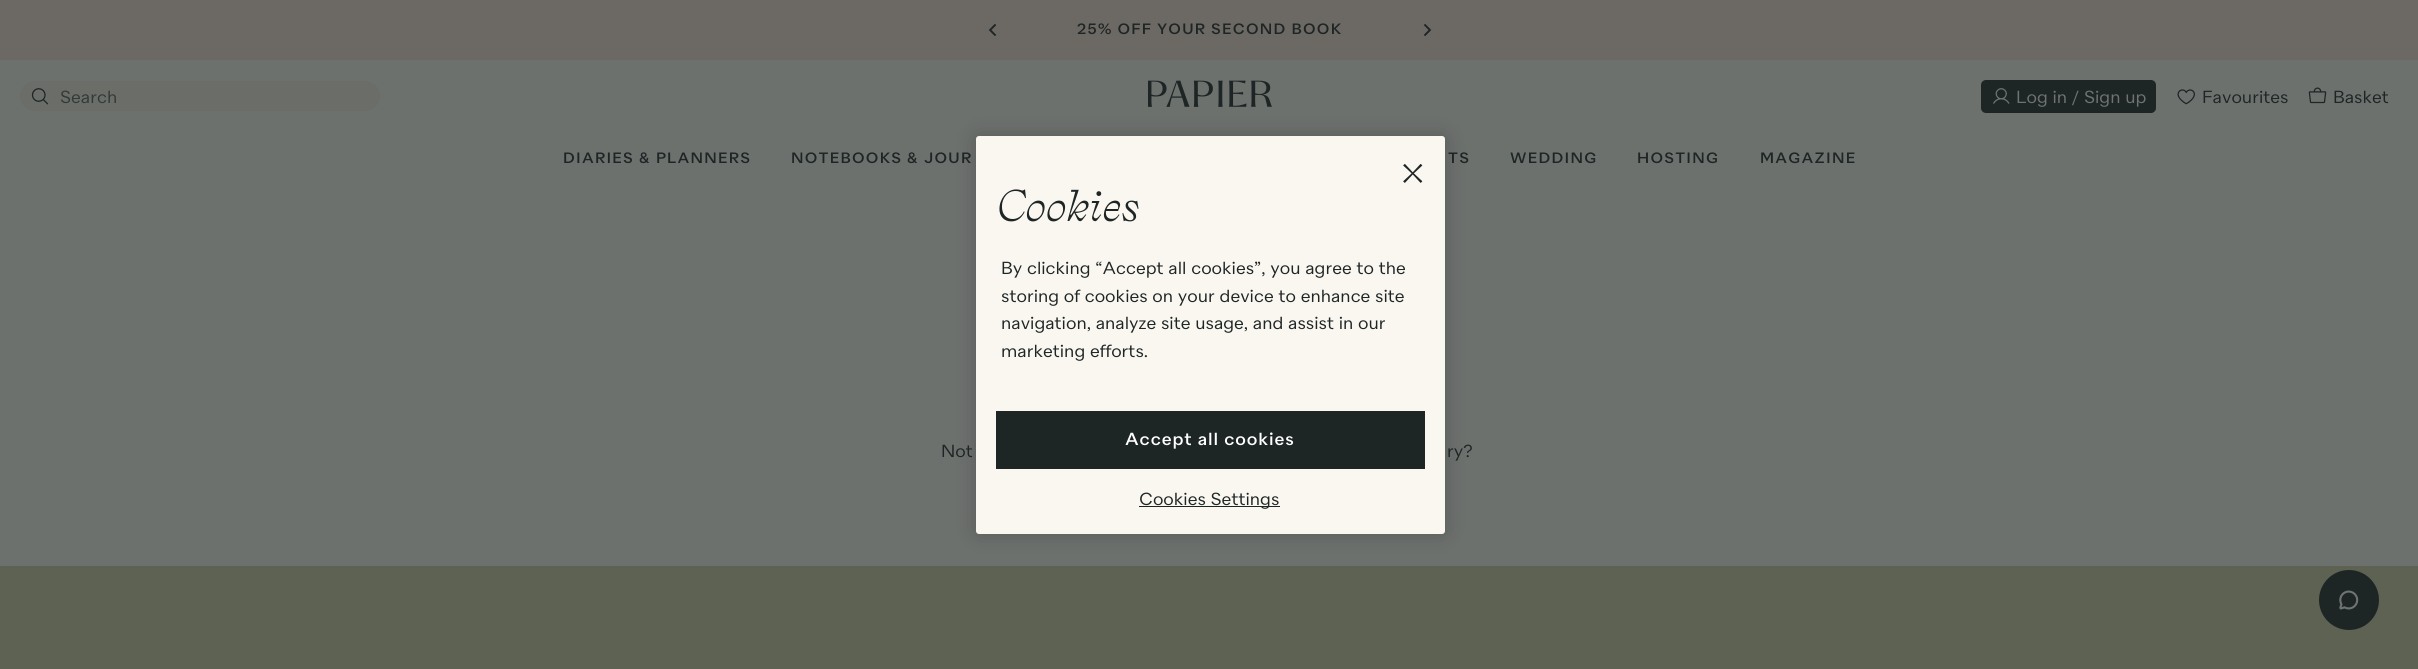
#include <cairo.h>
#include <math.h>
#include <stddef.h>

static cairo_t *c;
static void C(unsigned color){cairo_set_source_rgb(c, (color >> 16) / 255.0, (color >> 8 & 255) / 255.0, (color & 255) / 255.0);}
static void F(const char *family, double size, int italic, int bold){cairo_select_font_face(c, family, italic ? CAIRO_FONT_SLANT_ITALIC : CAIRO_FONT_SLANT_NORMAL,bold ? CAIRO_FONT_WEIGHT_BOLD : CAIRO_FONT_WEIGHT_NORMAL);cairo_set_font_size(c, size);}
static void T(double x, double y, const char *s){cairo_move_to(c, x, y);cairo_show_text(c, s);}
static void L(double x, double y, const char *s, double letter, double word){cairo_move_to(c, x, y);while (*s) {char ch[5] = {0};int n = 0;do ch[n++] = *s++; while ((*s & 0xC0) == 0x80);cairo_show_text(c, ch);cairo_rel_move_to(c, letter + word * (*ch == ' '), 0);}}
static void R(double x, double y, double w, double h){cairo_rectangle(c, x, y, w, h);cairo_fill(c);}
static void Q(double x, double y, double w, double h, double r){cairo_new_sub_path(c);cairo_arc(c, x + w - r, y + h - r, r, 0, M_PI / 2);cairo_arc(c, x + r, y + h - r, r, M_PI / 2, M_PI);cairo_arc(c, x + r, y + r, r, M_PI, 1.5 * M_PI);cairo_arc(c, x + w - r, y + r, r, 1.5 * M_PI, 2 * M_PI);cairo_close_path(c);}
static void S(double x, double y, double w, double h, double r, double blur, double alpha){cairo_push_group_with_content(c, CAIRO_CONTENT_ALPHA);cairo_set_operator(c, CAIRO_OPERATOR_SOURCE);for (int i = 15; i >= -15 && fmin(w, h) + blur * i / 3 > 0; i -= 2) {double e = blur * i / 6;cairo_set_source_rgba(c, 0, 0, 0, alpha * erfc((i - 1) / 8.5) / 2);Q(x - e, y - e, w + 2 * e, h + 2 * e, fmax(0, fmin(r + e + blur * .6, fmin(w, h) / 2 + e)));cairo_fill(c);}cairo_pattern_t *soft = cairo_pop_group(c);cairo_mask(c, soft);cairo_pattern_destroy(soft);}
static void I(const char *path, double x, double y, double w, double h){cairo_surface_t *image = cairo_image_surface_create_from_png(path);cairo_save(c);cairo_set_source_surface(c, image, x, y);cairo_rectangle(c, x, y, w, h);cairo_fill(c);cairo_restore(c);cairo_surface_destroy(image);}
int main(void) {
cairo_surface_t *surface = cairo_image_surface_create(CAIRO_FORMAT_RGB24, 2418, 669);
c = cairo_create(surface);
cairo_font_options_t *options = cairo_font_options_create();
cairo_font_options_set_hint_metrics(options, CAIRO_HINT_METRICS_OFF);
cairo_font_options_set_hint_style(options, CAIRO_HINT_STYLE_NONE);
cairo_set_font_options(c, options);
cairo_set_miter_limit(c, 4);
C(0x6d716e);
cairo_paint(c);
C(0x6c6863);
R(0,0,2418,60);
I("1.png",988,24,9,12);
F("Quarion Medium",15,0,0);
C(0x1e2525);
L(1077,34,"25% OFF YOUR SECOND BOOK",1.25,0);
I("2.png",1423,24,9,12);
C(0x6b6d68);
Q(20,81,360,30,15);
cairo_fill(c);
I("3.png",31,88,18,17);
F("Quarion",17.5,0,0);
C(0x323939);
T(60,103,"Search");
I("4.png",1148,80,124,27);
C(0x1e2525);
Q(1981,80,175,33,5);
cairo_fill(c);
I("5.png",1993,88,17,16);
C(0x6f7373);
T(2016,103,"Log in / Sign up");
I("6.png",2177,89,18,16);
C(0x1e2525);
T(2202,103,"Favourites");
I("7.png",2308,87,19,17);
T(2333,103,"Basket");
F("Quarion Medium",15,0,0);
L(563,163,"DIARIES & PLANNERS",1.25,0);
L(791,163,"NOTEBOOKS & JOUR",1.25,0);
L(1448,163,"TS",1.25,0);
L(1510,163,"WEDDING",1.25,0);
L(1637,163,"HOSTING",1.25,0);
L(1760,163,"MAGAZINE",1.25,0);
C(0x5e6253);
R(0,566,2418,103);
C(0x000000);
S(976,136,469,398,3,11,.2);
C(0xfaf7f0);
Q(976,136,469,398,3);
cairo_fill(c);
I("8.png",1403,164,20,19);
F("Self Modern",40,1,0);
C(0x1e2525);
T(995,221,"Cookies");
F("Quarion",17.5,0,0);
T(1001,274,"By clicking “Accept all cookies”, you agree to the");
T(1001,302,"storing of cookies on your device to enhance site");
T(1001,329,"navigation, analyze site usage, and assist in our");
T(1001,357,"marketing efforts.");
R(996,411,429,58);
F("Quarion Medium",17.5,0,0);
C(0xffffff);
L(1125,445,"Accept all cookies",.9,0);
C(0x1e2525);
R(1139,506,141,1);
F("Quarion",17.5,0,0);
T(1139,505,"Cookies Settings");
T(941,457,"Not");
T(1447,457,"ry?");
cairo_new_path(c);
cairo_arc(c,2349,600,30,0,2 * M_PI);
cairo_fill(c);
I("9.png",2339,590,20,20);
cairo_surface_write_to_png(surface, "o.png");
cairo_font_options_destroy(options);
cairo_destroy(c);
cairo_surface_destroy(surface);
return 0;
}
